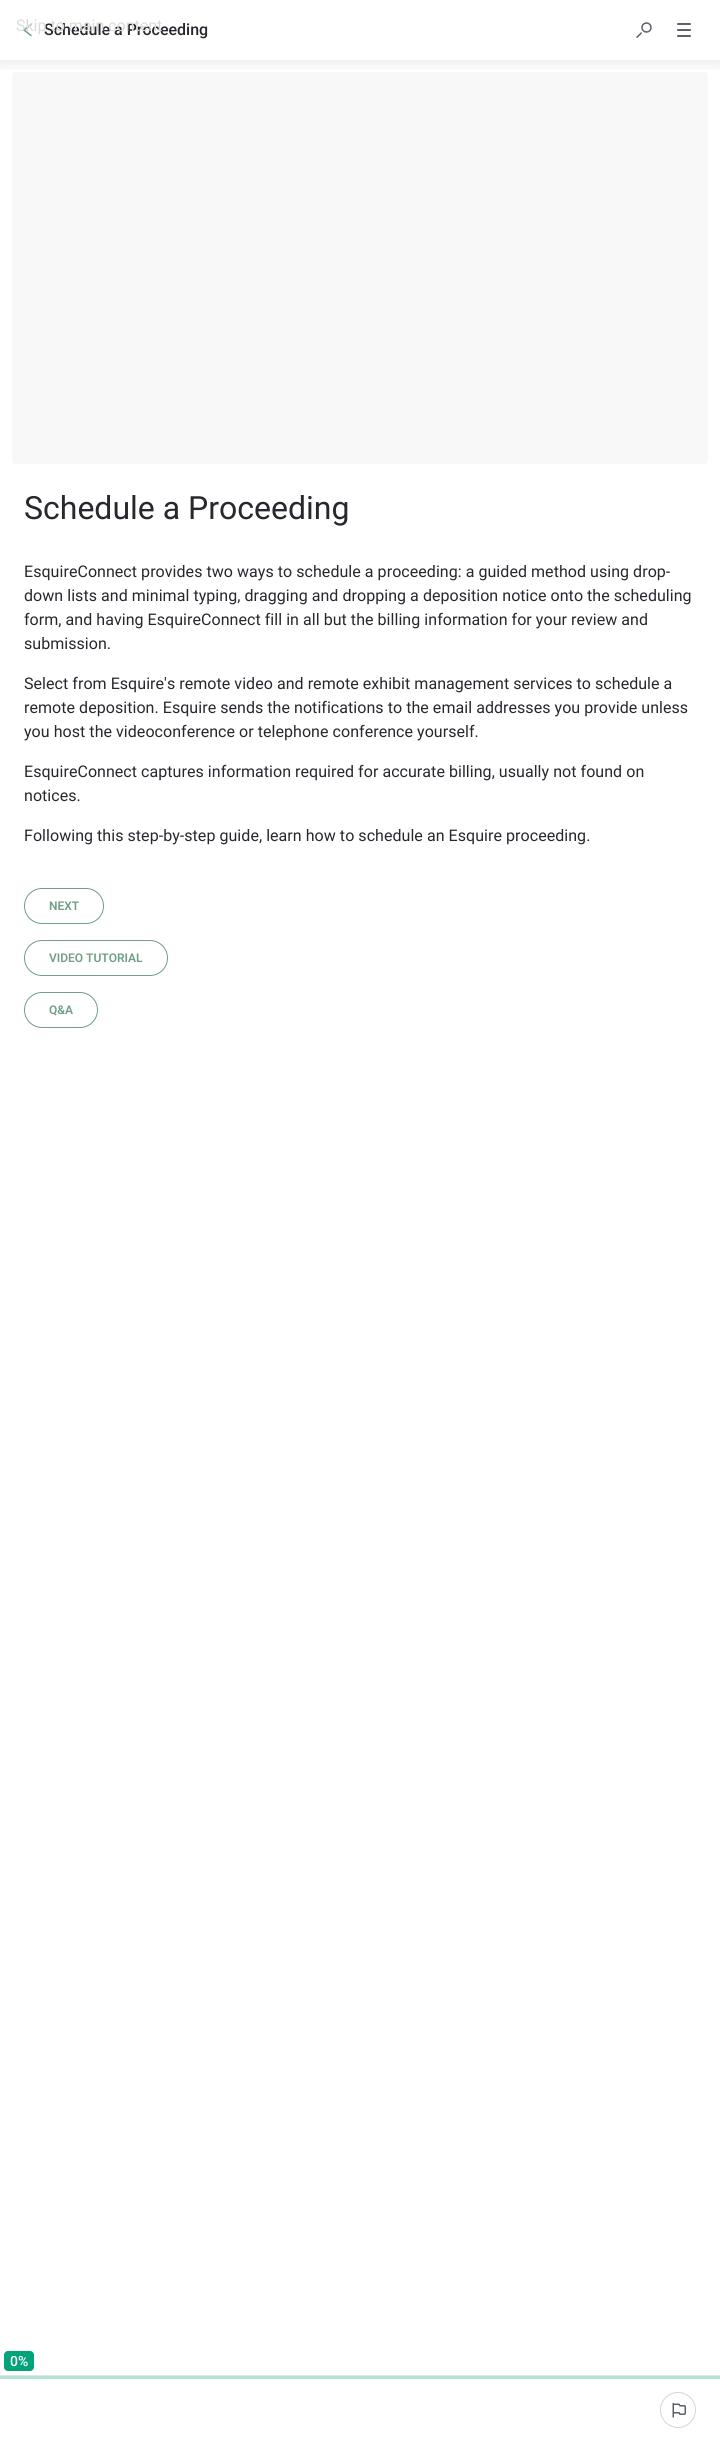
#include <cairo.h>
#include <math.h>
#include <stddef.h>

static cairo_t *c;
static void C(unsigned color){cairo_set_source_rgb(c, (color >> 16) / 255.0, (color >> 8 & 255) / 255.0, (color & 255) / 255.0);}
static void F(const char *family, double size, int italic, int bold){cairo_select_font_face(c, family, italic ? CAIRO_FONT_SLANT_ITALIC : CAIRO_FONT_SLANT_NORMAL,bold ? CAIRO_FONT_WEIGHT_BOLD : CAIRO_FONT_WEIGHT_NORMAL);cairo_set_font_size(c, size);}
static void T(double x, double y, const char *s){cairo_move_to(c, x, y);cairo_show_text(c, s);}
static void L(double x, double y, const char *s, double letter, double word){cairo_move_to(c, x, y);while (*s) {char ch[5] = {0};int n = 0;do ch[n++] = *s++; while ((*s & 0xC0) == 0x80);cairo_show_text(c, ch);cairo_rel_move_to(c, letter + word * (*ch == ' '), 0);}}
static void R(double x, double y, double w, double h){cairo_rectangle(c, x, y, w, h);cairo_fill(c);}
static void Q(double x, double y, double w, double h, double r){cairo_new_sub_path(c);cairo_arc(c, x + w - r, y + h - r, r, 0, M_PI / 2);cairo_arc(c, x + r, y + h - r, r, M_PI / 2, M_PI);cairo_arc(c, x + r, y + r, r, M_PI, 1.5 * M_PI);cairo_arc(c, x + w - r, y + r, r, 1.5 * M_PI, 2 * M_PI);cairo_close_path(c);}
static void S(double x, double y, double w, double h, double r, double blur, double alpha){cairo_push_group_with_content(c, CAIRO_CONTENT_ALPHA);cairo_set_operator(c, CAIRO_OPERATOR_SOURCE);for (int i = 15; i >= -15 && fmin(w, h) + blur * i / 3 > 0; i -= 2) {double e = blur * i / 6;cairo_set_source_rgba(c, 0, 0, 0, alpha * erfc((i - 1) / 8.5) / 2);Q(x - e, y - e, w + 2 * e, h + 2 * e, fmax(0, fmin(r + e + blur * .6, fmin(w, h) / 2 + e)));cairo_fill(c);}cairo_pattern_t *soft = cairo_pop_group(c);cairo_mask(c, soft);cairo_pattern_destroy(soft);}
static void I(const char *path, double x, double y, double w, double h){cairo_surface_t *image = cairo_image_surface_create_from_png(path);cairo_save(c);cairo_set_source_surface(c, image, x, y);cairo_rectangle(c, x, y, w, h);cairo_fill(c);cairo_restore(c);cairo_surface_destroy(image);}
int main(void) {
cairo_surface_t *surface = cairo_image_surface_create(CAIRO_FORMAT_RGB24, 720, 2443);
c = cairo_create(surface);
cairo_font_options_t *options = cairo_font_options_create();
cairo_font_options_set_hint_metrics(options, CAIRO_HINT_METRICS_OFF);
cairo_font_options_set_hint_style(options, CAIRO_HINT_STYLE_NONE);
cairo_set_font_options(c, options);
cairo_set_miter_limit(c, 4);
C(0xffffff);
cairo_paint(c);
C(0xf8f8f9);
Q(12,72,696,392,4);
cairo_fill(c);
cairo_save(c);
cairo_rectangle(c,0,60,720,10);
cairo_clip(c);
C(0x000000);
S(0,0,720,60,0,10,.12);
cairo_restore(c);
I("1.png",23,23,9,14);
F("Roboto Medium",16,0,0);
C(0x26282e);
T(44,35,"Schedule a Proceeding");
F("Roboto",16,0,0);
C(0xdadbdb);
T(16,31,"Skip to main content");
I("2.png",636,22,16,16);
C(0x5d6169);
Q(677,23,14,2,1);
cairo_fill(c);
Q(677,29,14,2,1);
cairo_fill(c);
Q(677,35,14,2,1);
cairo_fill(c);
F("Roboto",32,0,0);
C(0x26282e);
T(24,519,"Schedule a Proceeding");
F("Roboto",16,0,0);
L(24,577,"EsquireConnect provides two ways to schedule a proceeding: a guided method using drop-",.05,0);
L(24,601,"down lists and minimal typing, dragging and dropping a deposition notice onto the scheduling",.05,0);
L(24,625,"form, and having EsquireConnect fill in all but the billing information for your review and",.05,0);
L(24,649,"submission.",.05,0);
L(24,689,"Select from Esquire's remote video and remote exhibit management services to schedule a",.05,0);
L(24,713,"remote deposition. Esquire sends the notifications to the email addresses you provide unless",.05,0);
L(24,737,"you host the videoconference or telephone conference yourself.",.05,0);
L(24,777,"EsquireConnect captures information required for accurate billing, usually not found on",.05,0);
L(24,801,"notices.",.05,0);
L(24,841,"Following this step-by-step guide, learn how to schedule an Esquire proceeding.",.05,0);
Q(24.5,888.5,79,35,17.5);
C(0x709e86);
cairo_set_line_width(c,1);
cairo_stroke(c);
F("Roboto SemiBold",12,0,0);
T(49,910,"NEXT");
Q(24.5,940.5,143,35,17.5);
cairo_stroke(c);
T(49,962,"VIDEO TUTORIAL");
Q(24.5,992.5,73,35,17.5);
cairo_stroke(c);
T(49,1014,"Q&A");
C(0xe3e5e9);
R(0,2375,720,1);
C(0x00a37a);
Q(4,2351,30,20,4);
cairo_fill(c);
F("Roboto Medium",14,0,0);
C(0xffffff);
T(10,2366,"0%");
C(0xb3e3d7);
R(0,2376,720,3);
cairo_new_path(c);
cairo_arc(c,678,2410,17.5,0,2 * M_PI);
C(0xd3d5da);
cairo_stroke(c);
I("3.png",672,2402,14,16);
cairo_surface_write_to_png(surface, "o.png");
cairo_font_options_destroy(options);
cairo_destroy(c);
cairo_surface_destroy(surface);
return 0;
}
